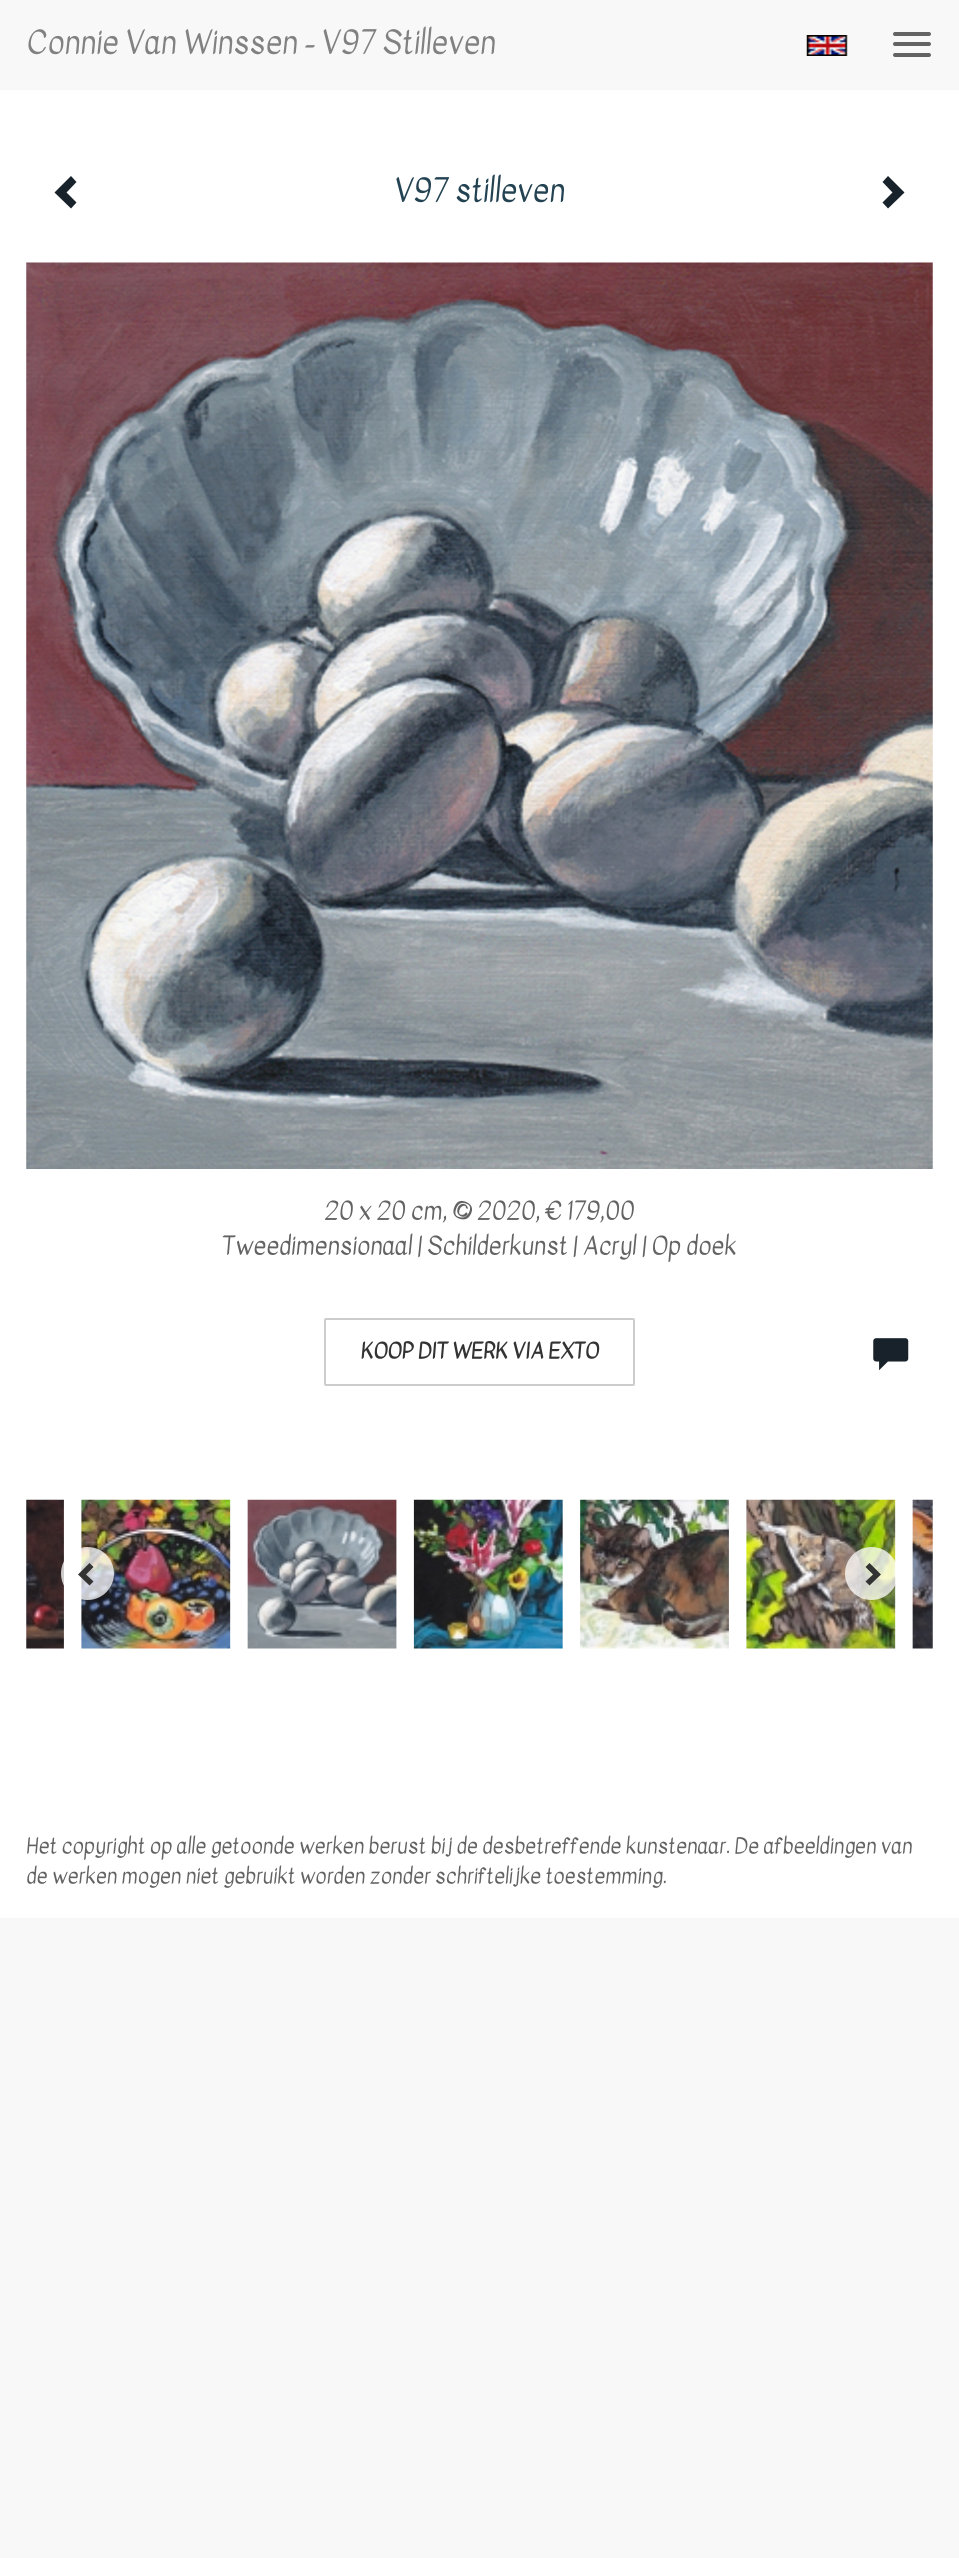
#include <cairo.h>
#include <math.h>
#include <stddef.h>

static cairo_t *c;
static void C(unsigned color){cairo_set_source_rgb(c, (color >> 16) / 255.0, (color >> 8 & 255) / 255.0, (color & 255) / 255.0);}
static void F(const char *family, double size, int italic, int bold){cairo_select_font_face(c, family, italic ? CAIRO_FONT_SLANT_ITALIC : CAIRO_FONT_SLANT_NORMAL,bold ? CAIRO_FONT_WEIGHT_BOLD : CAIRO_FONT_WEIGHT_NORMAL);cairo_set_font_size(c, size);}
static void T(double x, double y, const char *s){cairo_move_to(c, x, y);cairo_show_text(c, s);}
static void R(double x, double y, double w, double h){cairo_rectangle(c, x, y, w, h);cairo_fill(c);}
static void Q(double x, double y, double w, double h, double r){cairo_new_sub_path(c);cairo_arc(c, x + w - r, y + h - r, r, 0, M_PI / 2);cairo_arc(c, x + r, y + h - r, r, M_PI / 2, M_PI);cairo_arc(c, x + r, y + r, r, M_PI, 1.5 * M_PI);cairo_arc(c, x + w - r, y + r, r, 1.5 * M_PI, 2 * M_PI);cairo_close_path(c);}
static void I(const char *path, double x, double y, double w, double h){cairo_surface_t *image = cairo_image_surface_create_from_png(path);cairo_save(c);cairo_set_source_surface(c, image, x, y);cairo_rectangle(c, x, y, w, h);cairo_fill(c);cairo_restore(c);cairo_surface_destroy(image);}
int main(void) {
cairo_surface_t *surface = cairo_image_surface_create(CAIRO_FORMAT_RGB24, 959, 2558);
c = cairo_create(surface);
cairo_font_options_t *options = cairo_font_options_create();
cairo_font_options_set_hint_metrics(options, CAIRO_HINT_METRICS_OFF);
cairo_font_options_set_hint_style(options, CAIRO_HINT_STYLE_NONE);
cairo_set_font_options(c, options);
cairo_set_miter_limit(c, 4);
C(0xf8f8f8);
cairo_paint(c);
C(0xffffff);
R(0,90,959,1828);
F("Kavivanar",31.5,0,0);
C(0x828181);
T(26,53,"Connie Van Winssen - V97 Stilleven");
C(0x646363);
Q(893,32,38,4,2);
cairo_fill(c);
Q(893,42,38,4,2);
cairo_fill(c);
Q(893,53,38,4,2);
cairo_fill(c);
I("1.png",806,35,42,21);
C(0x18222b);
cairo_new_path(c);
cairo_move_to(c,76.5,182);
cairo_line_to(c,66.5,192.5);
cairo_line_to(c,76.5,202.5);
cairo_line_to(c,71,208.5);
cairo_line_to(c,54.5,192.5);
cairo_line_to(c,71,176);
cairo_close_path(c);
cairo_fill(c);
C(0x234252);
T(394,201,"V97 stilleven");
C(0x18222b);
cairo_new_path(c);
cairo_move_to(c,904.5,192.5);
cairo_line_to(c,888,208.5);
cairo_line_to(c,882.5,202.5);
cairo_line_to(c,892.5,192.5);
cairo_line_to(c,882.5,182);
cairo_line_to(c,888,176);
cairo_close_path(c);
cairo_fill(c);
I("2.png",26,262,907,907);
F("Kavivanar",24.5,0,0);
C(0x646363);
T(324,1219,"20 x 20 cm, © 2020, € 179,00");
T(222,1254,"Tweedimensionaal | Schilderkunst | Acryl | Op doek");
Q(325,1319,309,66,1);
C(0xcccccc);
cairo_stroke(c);
F("Kavivanar",21,0,1);
C(0x333333);
T(361,1358,"KOOP DIT WERK VIA EXTO");
I("3.png",873,1338,36,33);
I("4.png",26,1499,38,150);
I("5.png",81,1499,150,150);
I("6.png",247,1499,150,150);
I("7.png",413,1499,150,150);
I("8.png",580,1499,149,150);
I("9.png",746,1499,150,150);
I("10.png",912,1499,21,150);
cairo_set_source_rgba(c,1,1,1,0.75);
cairo_arc(c,87.5,1573.5,26.5,0,2 * M_PI);
cairo_fill(c);
C(0x333333);
cairo_new_path(c);
cairo_move_to(c,93.5,1567);
cairo_line_to(c,86,1574.5);
cairo_line_to(c,93.5,1581.5);
cairo_line_to(c,89.5,1585.5);
cairo_line_to(c,78,1574.5);
cairo_line_to(c,89.5,1563);
cairo_close_path(c);
cairo_fill(c);
cairo_set_source_rgba(c,1,1,1,0.75);
cairo_arc(c,871.5,1573.5,26.5,0,2 * M_PI);
cairo_fill(c);
C(0x333333);
cairo_new_path(c);
cairo_move_to(c,881,1574.5);
cairo_line_to(c,869.5,1585.5);
cairo_line_to(c,865.5,1581.5);
cairo_line_to(c,873,1574.5);
cairo_line_to(c,865.5,1567);
cairo_line_to(c,869.5,1563);
cairo_close_path(c);
cairo_fill(c);
F("Kavivanar",21,0,0);
C(0x646363);
T(26,1853,"Het copyright op alle getoonde werken berust bij de desbetreffende kunstenaar. De afbeeldingen van");
T(26,1883,"de werken mogen niet gebruikt worden zonder schriftelijke toestemming.");
cairo_surface_write_to_png(surface, "o.png");
cairo_font_options_destroy(options);
cairo_destroy(c);
cairo_surface_destroy(surface);
return 0;
}
